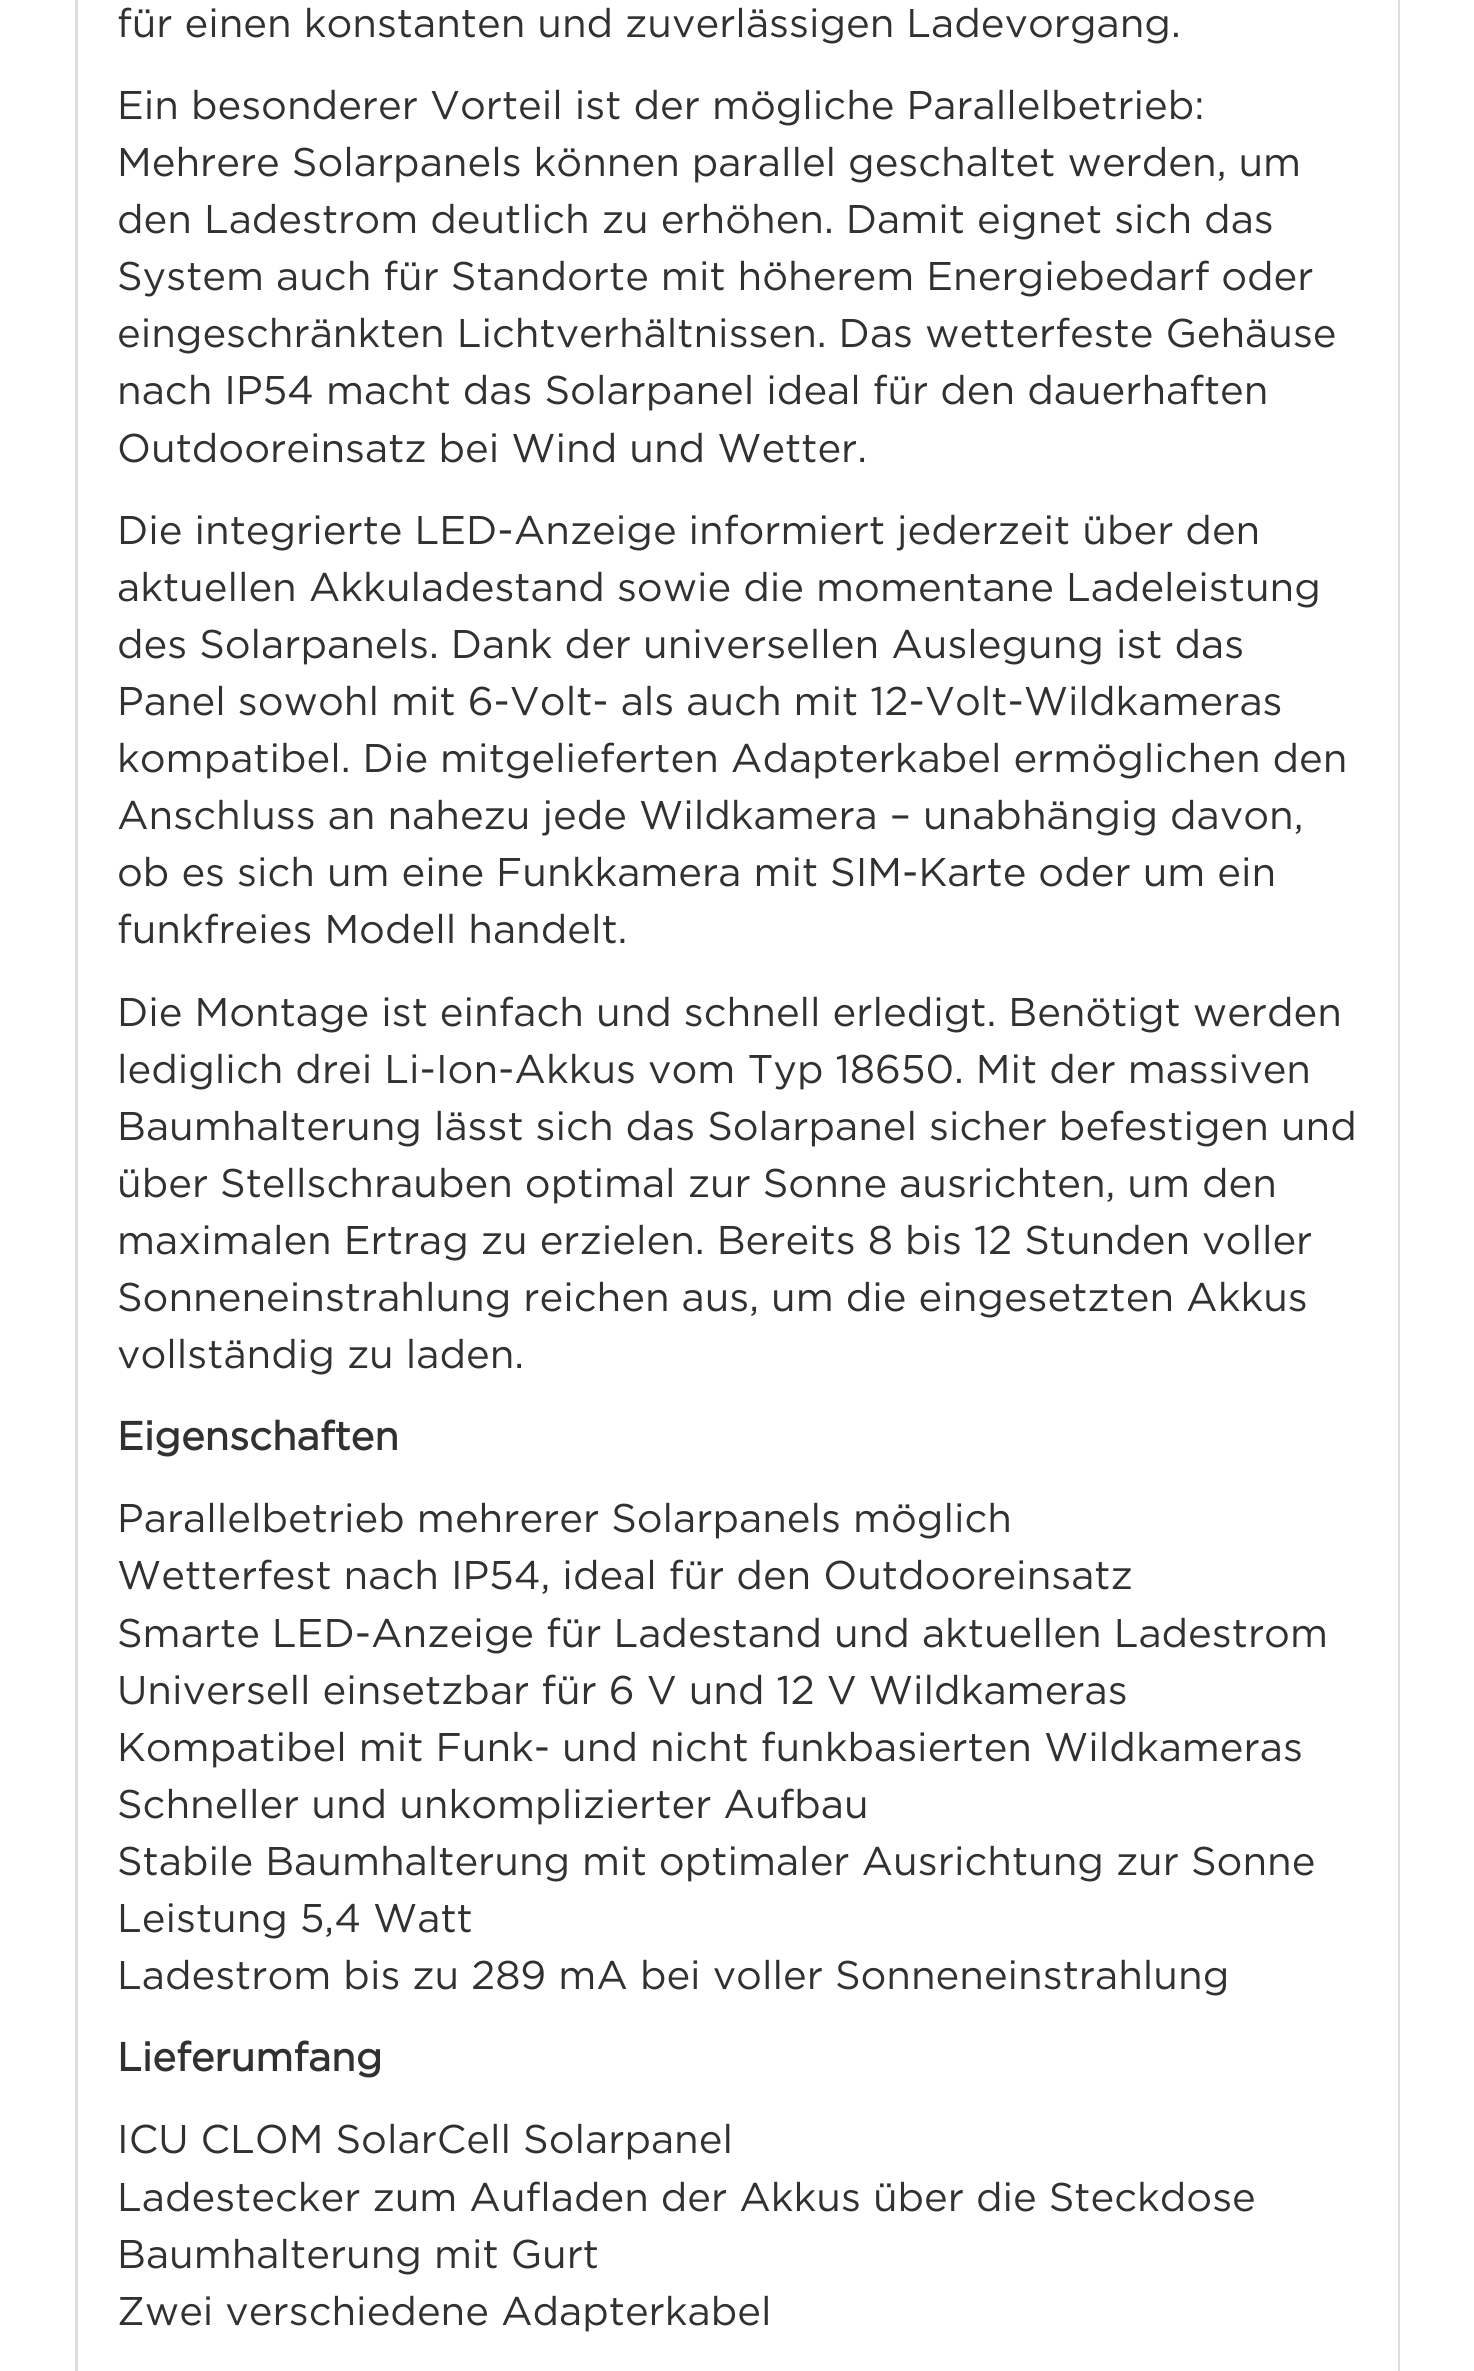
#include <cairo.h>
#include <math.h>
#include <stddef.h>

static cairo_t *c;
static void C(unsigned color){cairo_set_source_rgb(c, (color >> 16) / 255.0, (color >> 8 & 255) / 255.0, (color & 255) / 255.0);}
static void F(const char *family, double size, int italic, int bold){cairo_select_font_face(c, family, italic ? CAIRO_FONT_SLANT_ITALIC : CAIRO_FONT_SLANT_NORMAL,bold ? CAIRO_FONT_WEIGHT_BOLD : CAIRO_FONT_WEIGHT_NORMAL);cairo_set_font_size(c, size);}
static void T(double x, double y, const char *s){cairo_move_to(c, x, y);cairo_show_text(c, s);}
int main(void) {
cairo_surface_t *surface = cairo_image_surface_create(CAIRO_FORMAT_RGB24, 1474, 2371);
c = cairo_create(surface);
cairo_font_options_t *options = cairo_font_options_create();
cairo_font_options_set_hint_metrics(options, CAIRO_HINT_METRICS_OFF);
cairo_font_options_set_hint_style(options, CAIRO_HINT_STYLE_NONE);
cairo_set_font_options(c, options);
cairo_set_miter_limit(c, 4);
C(0xffffff);
cairo_paint(c);
C(0xdddddd);
cairo_new_path(c);
cairo_move_to(c,1400,-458);
cairo_line_to(c,1398,-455);
cairo_line_to(c,1398,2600);
cairo_curve_to(c,1398,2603,1397,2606,1395,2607);
cairo_line_to(c,1396,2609);
cairo_curve_to(c,1398,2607,1400,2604,1400,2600);
cairo_close_path(c);
cairo_fill(c);
cairo_new_path(c);
cairo_move_to(c,75,-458);
cairo_line_to(c,75,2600);
cairo_curve_to(c,75,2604,76,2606,79,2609);
cairo_line_to(c,81,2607);
cairo_curve_to(c,79,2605,78,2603,78,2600);
cairo_line_to(c,78,-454);
cairo_close_path(c);
cairo_fill(c);
F("Gotham",40,0,0);
C(0x313131);
T(117,37,"für einen konstanten und zuverlässigen Ladevorgang.");
T(117,119,"Ein besonderer Vorteil ist der mögliche Parallelbetrieb:");
T(117,176,"Mehrere Solarpanels können parallel geschaltet werden, um");
T(117,233,"den Ladestrom deutlich zu erhöhen. Damit eignet sich das");
T(117,290,"System auch für Standorte mit höherem Energiebedarf oder");
T(117,347,"eingeschränkten Lichtverhältnissen. Das wetterfeste Gehäuse");
T(117,404,"nach IP54 macht das Solarpanel ideal für den dauerhaften");
T(117,462,"Outdooreinsatz bei Wind und Wetter.");
T(117,544,"Die integrierte LED-Anzeige informiert jederzeit über den");
T(117,601,"aktuellen Akkuladestand sowie die momentane Ladeleistung");
T(117,658,"des Solarpanels. Dank der universellen Auslegung ist das");
T(117,715,"Panel sowohl mit 6-Volt- als auch mit 12-Volt-Wildkameras");
T(117,772,"kompatibel. Die mitgelieferten Adapterkabel ermöglichen den");
T(117,829,"Anschluss an nahezu jede Wildkamera – unabhängig davon,");
T(117,886,"ob es sich um eine Funkkamera mit SIM-Karte oder um ein");
T(117,943,"funkfreies Modell handelt.");
T(117,1026,"Die Montage ist einfach und schnell erledigt. Benötigt werden");
T(117,1083,"lediglich drei Li-Ion-Akkus vom Typ 18650. Mit der massiven");
T(117,1140,"Baumhalterung lässt sich das Solarpanel sicher befestigen und");
T(117,1197,"über Stellschrauben optimal zur Sonne ausrichten, um den");
T(117,1254,"maximalen Ertrag zu erzielen. Bereits 8 bis 12 Stunden voller");
T(117,1311,"Sonneneinstrahlung reichen aus, um die eingesetzten Akkus");
T(117,1368,"vollständig zu laden.");
F("Gotham",40,0,1);
T(117,1450,"Eigenschaften");
F("Gotham",40,0,0);
T(117,1532,"Parallelbetrieb mehrerer Solarpanels möglich");
T(117,1589,"Wetterfest nach IP54, ideal für den Outdooreinsatz");
T(117,1647,"Smarte LED-Anzeige für Ladestand und aktuellen Ladestrom");
T(117,1704,"Universell einsetzbar für 6 V und 12 V Wildkameras");
T(117,1761,"Kompatibel mit Funk- und nicht funkbasierten Wildkameras");
T(117,1818,"Schneller und unkomplizierter Aufbau");
T(117,1875,"Stabile Baumhalterung mit optimaler Ausrichtung zur Sonne");
T(117,1932,"Leistung 5,4 Watt");
T(117,1989,"Ladestrom bis zu 289 mA bei voller Sonneneinstrahlung");
F("Gotham",40,0,1);
T(117,2071,"Lieferumfang");
F("Gotham",40,0,0);
T(117,2153,"ICU CLOM SolarCell Solarpanel");
T(117,2211,"Ladestecker zum Aufladen der Akkus über die Steckdose");
T(117,2268,"Baumhalterung mit Gurt");
T(117,2325,"Zwei verschiedene Adapterkabel");
cairo_surface_write_to_png(surface, "o.png");
cairo_font_options_destroy(options);
cairo_destroy(c);
cairo_surface_destroy(surface);
return 0;
}
